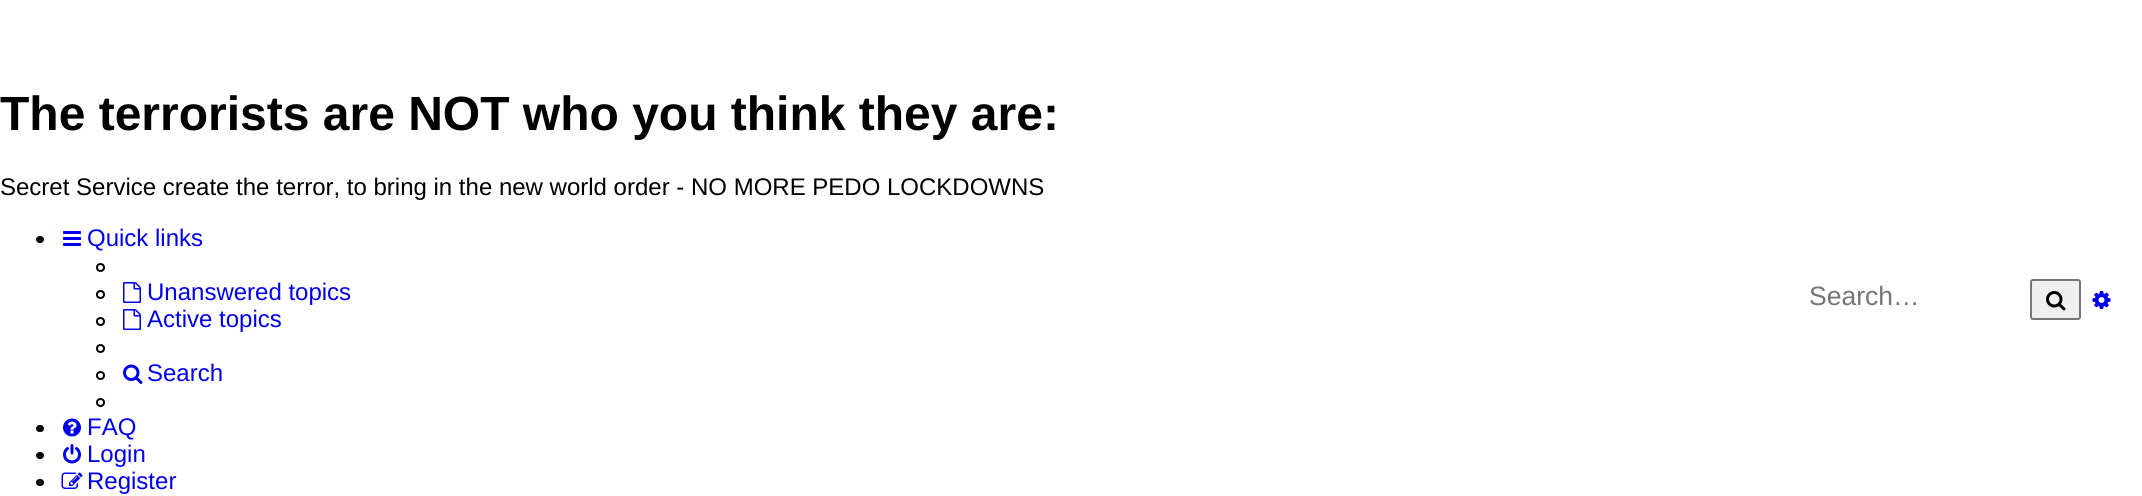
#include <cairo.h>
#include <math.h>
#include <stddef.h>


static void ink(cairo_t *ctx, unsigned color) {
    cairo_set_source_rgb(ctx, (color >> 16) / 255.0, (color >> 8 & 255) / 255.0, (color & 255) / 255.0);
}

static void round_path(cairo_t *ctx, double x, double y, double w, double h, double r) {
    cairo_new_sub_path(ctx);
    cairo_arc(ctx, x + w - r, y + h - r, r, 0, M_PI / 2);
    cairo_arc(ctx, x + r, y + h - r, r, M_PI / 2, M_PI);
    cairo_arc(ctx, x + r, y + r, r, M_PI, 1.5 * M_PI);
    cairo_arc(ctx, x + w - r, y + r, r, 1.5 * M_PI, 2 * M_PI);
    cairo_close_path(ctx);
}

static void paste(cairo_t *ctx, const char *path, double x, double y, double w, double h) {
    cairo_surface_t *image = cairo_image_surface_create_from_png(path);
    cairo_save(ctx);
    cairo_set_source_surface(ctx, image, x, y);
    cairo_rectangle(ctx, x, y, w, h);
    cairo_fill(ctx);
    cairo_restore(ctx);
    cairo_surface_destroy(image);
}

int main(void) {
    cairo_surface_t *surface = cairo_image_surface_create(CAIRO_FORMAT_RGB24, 2142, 496);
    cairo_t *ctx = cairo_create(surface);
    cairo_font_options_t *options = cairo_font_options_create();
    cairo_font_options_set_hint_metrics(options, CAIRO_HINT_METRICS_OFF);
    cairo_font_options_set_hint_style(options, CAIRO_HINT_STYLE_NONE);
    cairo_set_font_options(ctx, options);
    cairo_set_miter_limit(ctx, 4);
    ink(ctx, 0xFFFFFF);
    cairo_paint(ctx);
    cairo_select_font_face(ctx, "Liberation Sans", CAIRO_FONT_SLANT_NORMAL, CAIRO_FONT_WEIGHT_BOLD);
    cairo_set_font_size(ctx, 48);
    ink(ctx, 0x000000);
    cairo_move_to(ctx, 0, 130);
    cairo_show_text(ctx, "The terrorists are NOT who you think they are:");
    cairo_select_font_face(ctx, "Liberation Sans", CAIRO_FONT_SLANT_NORMAL, CAIRO_FONT_WEIGHT_NORMAL);
    cairo_set_font_size(ctx, 24);
    cairo_move_to(ctx, 0, 195);
    cairo_show_text(ctx, "Secret Service create the terror, to bring in the new world order - NO MORE PEDO LOCKDOWNS");
    cairo_set_font_size(ctx, 26.5);
    ink(ctx, 0x757575);
    cairo_move_to(ctx, 1809, 305);
    cairo_show_text(ctx, "Search…");
    ink(ctx, 0xEFEFEF);
    round_path(ctx, 2031, 280, 49, 39, 2);
    cairo_fill_preserve(ctx);
    ink(ctx, 0x767676);
    cairo_stroke(ctx);
    paste(ctx, "media/1.png", 2046, 291, 20, 20);
    paste(ctx, "media/2.png", 2092, 291, 19, 18);
    ink(ctx, 0x000000);
    round_path(ctx, 36, 236, 8, 7, 3.5);
    cairo_fill(ctx);
    paste(ctx, "media/3.png", 63, 231, 18, 15);
    cairo_set_font_size(ctx, 24);
    ink(ctx, 0x0000EE);
    cairo_move_to(ctx, 87, 246);
    cairo_show_text(ctx, "Quick links");
    cairo_new_path(ctx);
    cairo_arc(ctx, 100.5, 267.5, 3.5, 0, 2 * M_PI);
    ink(ctx, 0x000000);
    cairo_stroke(ctx);
    cairo_arc(ctx, 100.5, 294.5, 3.5, 0, 2 * M_PI);
    cairo_stroke(ctx);
    paste(ctx, "media/4.png", 123, 282, 18, 21);
    ink(ctx, 0x0000EE);
    cairo_move_to(ctx, 147, 300);
    cairo_show_text(ctx, "Unanswered topics");
    cairo_new_path(ctx);
    cairo_arc(ctx, 100.5, 321.5, 3.5, 0, 2 * M_PI);
    ink(ctx, 0x000000);
    cairo_stroke(ctx);
    paste(ctx, "media/4.png", 123, 309, 18, 21);
    ink(ctx, 0x0000EE);
    cairo_move_to(ctx, 147, 327);
    cairo_show_text(ctx, "Active topics");
    cairo_new_path(ctx);
    cairo_arc(ctx, 100.5, 348.5, 3.5, 0, 2 * M_PI);
    ink(ctx, 0x000000);
    cairo_stroke(ctx);
    cairo_arc(ctx, 100.5, 375.5, 3.5, 0, 2 * M_PI);
    cairo_stroke(ctx);
    paste(ctx, "media/5.png", 123, 364, 20, 20);
    ink(ctx, 0x0000EE);
    cairo_move_to(ctx, 147, 381);
    cairo_show_text(ctx, "Search");
    cairo_new_path(ctx);
    cairo_arc(ctx, 100.5, 402.5, 3.5, 0, 2 * M_PI);
    ink(ctx, 0x000000);
    cairo_stroke(ctx);
    round_path(ctx, 36, 425, 8, 7, 3.5);
    cairo_fill(ctx);
    paste(ctx, "media/6.png", 63, 418, 18, 19);
    ink(ctx, 0x0000EE);
    cairo_move_to(ctx, 87, 435);
    cairo_show_text(ctx, "FAQ");
    ink(ctx, 0x000000);
    round_path(ctx, 36, 452, 8, 7, 3.5);
    cairo_fill(ctx);
    paste(ctx, "media/7.png", 63, 444, 18, 20);
    ink(ctx, 0x0000EE);
    cairo_move_to(ctx, 87, 462);
    cairo_show_text(ctx, "Login");
    ink(ctx, 0x000000);
    round_path(ctx, 36, 479, 8, 7, 3.5);
    cairo_fill(ctx);
    paste(ctx, "media/8.png", 61, 472, 22, 17);
    ink(ctx, 0x0000EE);
    cairo_move_to(ctx, 87, 489);
    cairo_show_text(ctx, "Register");
    cairo_surface_write_to_png(surface, "image.png");
    cairo_font_options_destroy(options);
    cairo_destroy(ctx);
    cairo_surface_destroy(surface);
    return 0;
}
